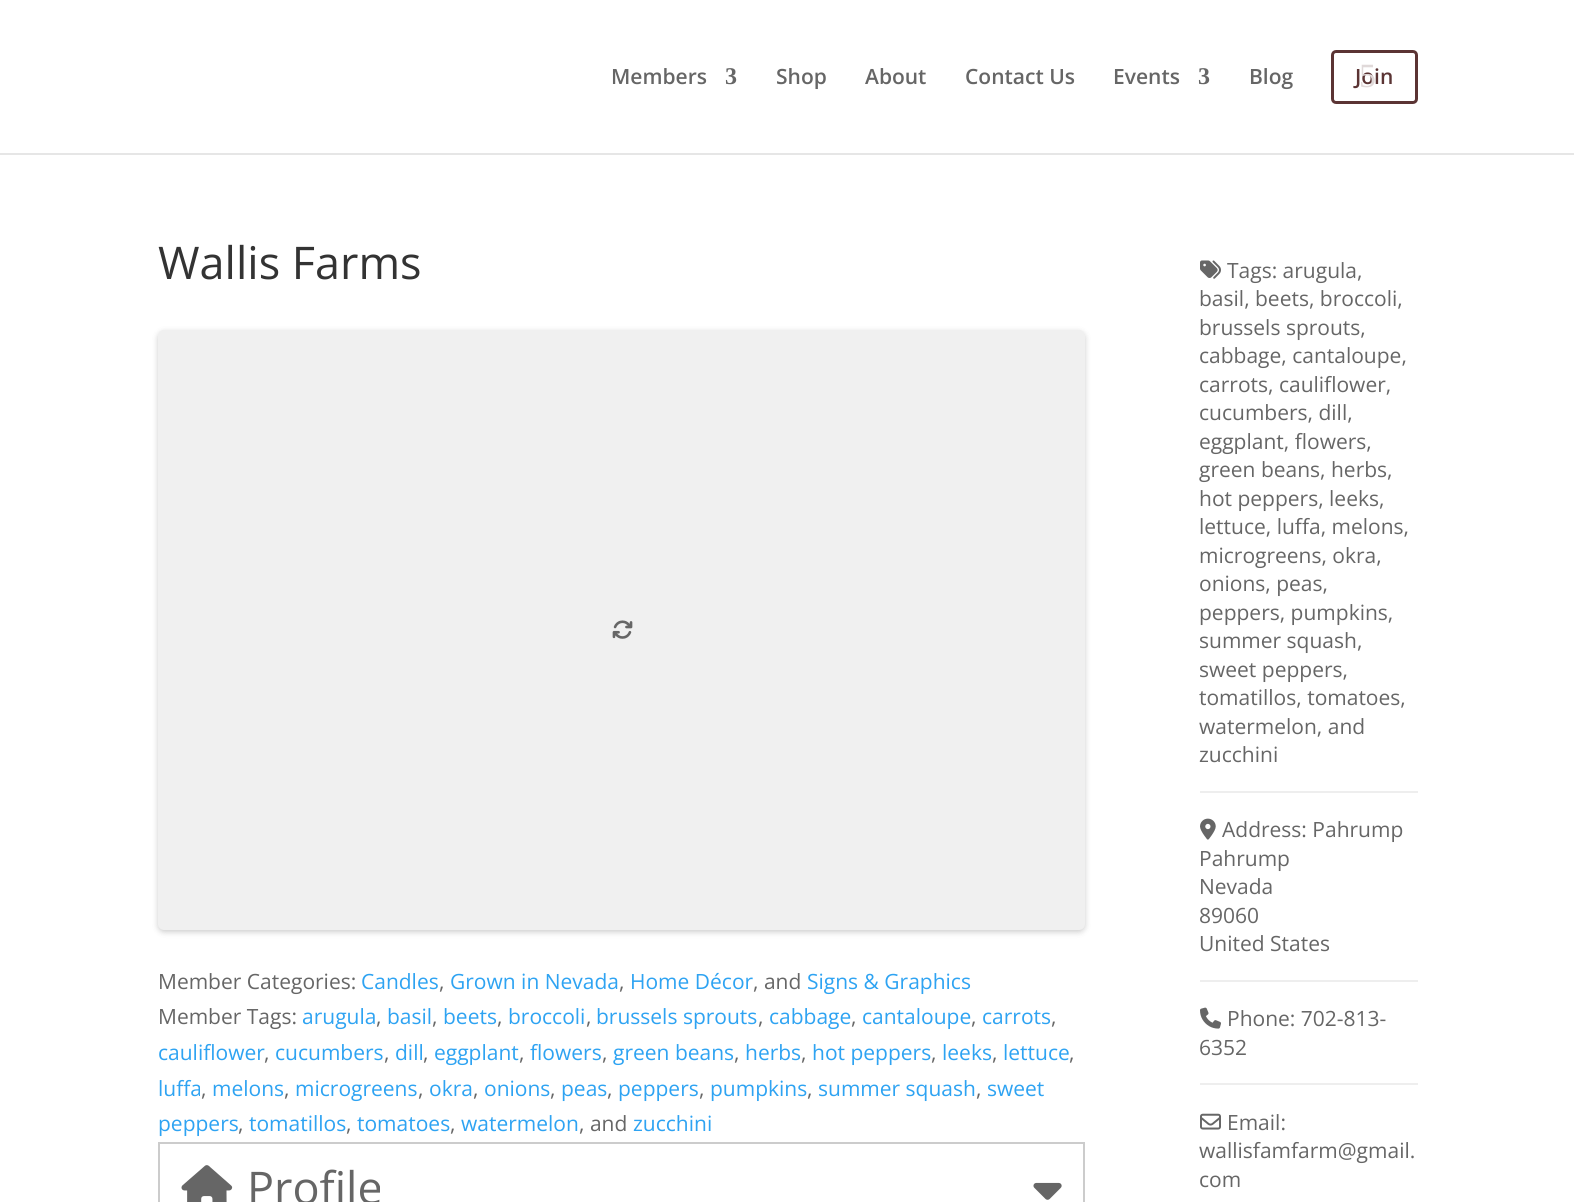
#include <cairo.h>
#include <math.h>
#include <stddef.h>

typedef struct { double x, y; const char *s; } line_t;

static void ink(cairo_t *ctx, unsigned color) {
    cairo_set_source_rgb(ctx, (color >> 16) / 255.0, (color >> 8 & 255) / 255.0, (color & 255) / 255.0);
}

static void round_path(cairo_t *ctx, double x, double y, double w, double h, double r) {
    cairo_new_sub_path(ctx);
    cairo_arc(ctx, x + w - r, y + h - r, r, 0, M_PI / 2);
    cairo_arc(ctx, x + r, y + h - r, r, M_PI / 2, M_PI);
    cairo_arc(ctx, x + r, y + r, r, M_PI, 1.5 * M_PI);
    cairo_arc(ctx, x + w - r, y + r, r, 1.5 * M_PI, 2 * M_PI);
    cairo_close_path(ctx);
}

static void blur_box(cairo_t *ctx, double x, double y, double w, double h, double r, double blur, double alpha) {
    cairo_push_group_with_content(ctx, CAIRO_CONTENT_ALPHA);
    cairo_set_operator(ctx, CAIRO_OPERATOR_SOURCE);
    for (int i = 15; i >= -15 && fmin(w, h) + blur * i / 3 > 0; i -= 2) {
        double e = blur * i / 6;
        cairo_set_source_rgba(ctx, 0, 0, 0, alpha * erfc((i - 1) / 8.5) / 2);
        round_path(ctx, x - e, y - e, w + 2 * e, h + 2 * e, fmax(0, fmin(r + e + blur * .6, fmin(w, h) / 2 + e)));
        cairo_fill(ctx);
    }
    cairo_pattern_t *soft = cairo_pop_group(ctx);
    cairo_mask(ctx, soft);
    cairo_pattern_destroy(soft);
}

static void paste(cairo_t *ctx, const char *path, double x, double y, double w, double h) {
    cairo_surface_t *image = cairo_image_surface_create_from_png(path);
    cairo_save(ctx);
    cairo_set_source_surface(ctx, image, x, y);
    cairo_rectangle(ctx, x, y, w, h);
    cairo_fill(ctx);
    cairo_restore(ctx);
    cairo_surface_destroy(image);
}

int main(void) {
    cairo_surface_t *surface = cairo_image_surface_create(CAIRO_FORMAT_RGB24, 1574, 1202);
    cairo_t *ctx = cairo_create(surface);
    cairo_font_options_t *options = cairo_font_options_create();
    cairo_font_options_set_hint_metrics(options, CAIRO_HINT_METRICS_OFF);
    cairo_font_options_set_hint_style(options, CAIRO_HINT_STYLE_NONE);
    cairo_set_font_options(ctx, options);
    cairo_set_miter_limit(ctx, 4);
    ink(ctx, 0xFFFFFF);
    cairo_paint(ctx);
    ink(ctx, 0xE6E6E6);
    cairo_rectangle(ctx, 0, 153, 1574, 2);
    cairo_fill(ctx);
    cairo_select_font_face(ctx, "Open Sans SemiBold", CAIRO_FONT_SLANT_NORMAL, CAIRO_FONT_WEIGHT_NORMAL);
    cairo_set_font_size(ctx, 21);
    ink(ctx, 0x666666);
    cairo_move_to(ctx, 611, 84);
    cairo_show_text(ctx, "Members");
    cairo_select_font_face(ctx, "Liberation Serif", CAIRO_FONT_SLANT_NORMAL, CAIRO_FONT_WEIGHT_BOLD);
    cairo_set_font_size(ctx, 24);
    cairo_move_to(ctx, 725, 84);
    cairo_show_text(ctx, "3");
    cairo_select_font_face(ctx, "Open Sans SemiBold", CAIRO_FONT_SLANT_NORMAL, CAIRO_FONT_WEIGHT_NORMAL);
    cairo_set_font_size(ctx, 21);
    {
        static const line_t items[] = {
            {776, 84, "Shop"},
            {865, 84, "About"},
            {965, 84, "Contact Us"},
            {1113, 84, "Events"},
        };
        for (size_t i = 0; i < sizeof items / sizeof *items; i++) {
            cairo_move_to(ctx, items[i].x, items[i].y);
            cairo_show_text(ctx, items[i].s);
        }
    }
    cairo_select_font_face(ctx, "Liberation Serif", CAIRO_FONT_SLANT_NORMAL, CAIRO_FONT_WEIGHT_BOLD);
    cairo_set_font_size(ctx, 24);
    cairo_move_to(ctx, 1198, 84);
    cairo_show_text(ctx, "3");
    cairo_select_font_face(ctx, "Open Sans SemiBold", CAIRO_FONT_SLANT_NORMAL, CAIRO_FONT_WEIGHT_NORMAL);
    cairo_set_font_size(ctx, 21);
    cairo_move_to(ctx, 1249, 84);
    cairo_show_text(ctx, "Blog");
    round_path(ctx, 1332.5, 51.5, 84, 51, 3.5);
    ink(ctx, 0x5B3434);
    cairo_set_line_width(ctx, 3);
    cairo_stroke(ctx);
    cairo_move_to(ctx, 1355, 84);
    cairo_show_text(ctx, "Join");
    cairo_select_font_face(ctx, "Liberation Serif", CAIRO_FONT_SLANT_NORMAL, CAIRO_FONT_WEIGHT_NORMAL);
    cairo_set_font_size(ctx, 34);
    ink(ctx, 0xE0D9D9);
    cairo_move_to(ctx, 1359, 87);
    cairo_show_text(ctx, "5");
    cairo_select_font_face(ctx, "Open Sans", CAIRO_FONT_SLANT_NORMAL, CAIRO_FONT_WEIGHT_NORMAL);
    cairo_set_font_size(ctx, 45);
    ink(ctx, 0x333333);
    cairo_move_to(ctx, 158, 279);
    cairo_show_text(ctx, "Wallis Farms");
    ink(ctx, 0x000000);
    blur_box(ctx, 158, 332, 927, 600, 6, 3, 0.2);
    ink(ctx, 0xF0F0F0);
    round_path(ctx, 158, 330, 927, 600, 6);
    cairo_fill(ctx);
    paste(ctx, "media/1.png", 612, 620, 21, 19);
    cairo_set_font_size(ctx, 21);
    ink(ctx, 0x666666);
    cairo_move_to(ctx, 158, 989);
    cairo_show_text(ctx, "Member Categories:");
    ink(ctx, 0x2EA3F2);
    cairo_move_to(ctx, 361, 989);
    cairo_show_text(ctx, "Candles");
    ink(ctx, 0x666666);
    cairo_move_to(ctx, 439, 989);
    cairo_show_text(ctx, ",");
    ink(ctx, 0x2EA3F2);
    cairo_move_to(ctx, 450, 989);
    cairo_show_text(ctx, "Grown in Nevada");
    ink(ctx, 0x666666);
    cairo_move_to(ctx, 619, 989);
    cairo_show_text(ctx, ",");
    ink(ctx, 0x2EA3F2);
    cairo_move_to(ctx, 630, 989);
    cairo_show_text(ctx, "Home Décor");
    ink(ctx, 0x666666);
    cairo_move_to(ctx, 753, 989);
    cairo_show_text(ctx, ", and");
    ink(ctx, 0x2EA3F2);
    cairo_move_to(ctx, 807, 989);
    cairo_show_text(ctx, "Signs & Graphics");
    ink(ctx, 0x666666);
    cairo_move_to(ctx, 158, 1024);
    cairo_show_text(ctx, "Member Tags:");
    ink(ctx, 0x2EA3F2);
    cairo_move_to(ctx, 302, 1024);
    cairo_show_text(ctx, "arugula");
    ink(ctx, 0x666666);
    cairo_move_to(ctx, 376, 1024);
    cairo_show_text(ctx, ",");
    ink(ctx, 0x2EA3F2);
    cairo_move_to(ctx, 387, 1024);
    cairo_show_text(ctx, "basil");
    ink(ctx, 0x666666);
    cairo_move_to(ctx, 432, 1024);
    cairo_show_text(ctx, ",");
    ink(ctx, 0x2EA3F2);
    cairo_move_to(ctx, 443, 1024);
    cairo_show_text(ctx, "beets");
    ink(ctx, 0x666666);
    cairo_move_to(ctx, 497, 1024);
    cairo_show_text(ctx, ",");
    ink(ctx, 0x2EA3F2);
    cairo_move_to(ctx, 508, 1024);
    cairo_show_text(ctx, "broccoli");
    ink(ctx, 0x666666);
    cairo_move_to(ctx, 586, 1024);
    cairo_show_text(ctx, ",");
    ink(ctx, 0x2EA3F2);
    cairo_move_to(ctx, 596, 1024);
    cairo_show_text(ctx, "brussels sprouts");
    ink(ctx, 0x666666);
    cairo_move_to(ctx, 758, 1024);
    cairo_show_text(ctx, ",");
    ink(ctx, 0x2EA3F2);
    cairo_move_to(ctx, 769, 1024);
    cairo_show_text(ctx, "cabbage");
    ink(ctx, 0x666666);
    cairo_move_to(ctx, 851, 1024);
    cairo_show_text(ctx, ",");
    ink(ctx, 0x2EA3F2);
    cairo_move_to(ctx, 862, 1024);
    cairo_show_text(ctx, "cantaloupe");
    ink(ctx, 0x666666);
    cairo_move_to(ctx, 971, 1024);
    cairo_show_text(ctx, ",");
    ink(ctx, 0x2EA3F2);
    cairo_move_to(ctx, 982, 1024);
    cairo_show_text(ctx, "carrots");
    ink(ctx, 0x666666);
    cairo_move_to(ctx, 1051, 1024);
    cairo_show_text(ctx, ",");
    ink(ctx, 0x2EA3F2);
    cairo_move_to(ctx, 158, 1060);
    cairo_show_text(ctx, "cauliflower");
    ink(ctx, 0x666666);
    cairo_move_to(ctx, 264, 1060);
    cairo_show_text(ctx, ",");
    ink(ctx, 0x2EA3F2);
    cairo_move_to(ctx, 275, 1060);
    cairo_show_text(ctx, "cucumbers");
    ink(ctx, 0x666666);
    cairo_move_to(ctx, 384, 1060);
    cairo_show_text(ctx, ",");
    ink(ctx, 0x2EA3F2);
    cairo_move_to(ctx, 395, 1060);
    cairo_show_text(ctx, "dill");
    ink(ctx, 0x666666);
    cairo_move_to(ctx, 423, 1060);
    cairo_show_text(ctx, ",");
    ink(ctx, 0x2EA3F2);
    cairo_move_to(ctx, 434, 1060);
    cairo_show_text(ctx, "eggplant");
    ink(ctx, 0x666666);
    cairo_move_to(ctx, 519, 1060);
    cairo_show_text(ctx, ",");
    ink(ctx, 0x2EA3F2);
    cairo_move_to(ctx, 530, 1060);
    cairo_show_text(ctx, "flowers");
    ink(ctx, 0x666666);
    cairo_move_to(ctx, 602, 1060);
    cairo_show_text(ctx, ",");
    ink(ctx, 0x2EA3F2);
    cairo_move_to(ctx, 613, 1060);
    cairo_show_text(ctx, "green beans");
    ink(ctx, 0x666666);
    cairo_move_to(ctx, 734, 1060);
    cairo_show_text(ctx, ",");
    ink(ctx, 0x2EA3F2);
    cairo_move_to(ctx, 745, 1060);
    cairo_show_text(ctx, "herbs");
    ink(ctx, 0x666666);
    cairo_move_to(ctx, 801, 1060);
    cairo_show_text(ctx, ",");
    ink(ctx, 0x2EA3F2);
    cairo_move_to(ctx, 812, 1060);
    cairo_show_text(ctx, "hot peppers");
    ink(ctx, 0x666666);
    cairo_move_to(ctx, 931, 1060);
    cairo_show_text(ctx, ",");
    ink(ctx, 0x2EA3F2);
    cairo_move_to(ctx, 942, 1060);
    cairo_show_text(ctx, "leeks");
    ink(ctx, 0x666666);
    cairo_move_to(ctx, 992, 1060);
    cairo_show_text(ctx, ",");
    ink(ctx, 0x2EA3F2);
    cairo_move_to(ctx, 1003, 1060);
    cairo_show_text(ctx, "lettuce");
    ink(ctx, 0x666666);
    cairo_move_to(ctx, 1069, 1060);
    cairo_show_text(ctx, ",");
    ink(ctx, 0x2EA3F2);
    cairo_move_to(ctx, 158, 1096);
    cairo_show_text(ctx, "luffa");
    ink(ctx, 0x666666);
    cairo_move_to(ctx, 201, 1096);
    cairo_show_text(ctx, ",");
    ink(ctx, 0x2EA3F2);
    cairo_move_to(ctx, 212, 1096);
    cairo_show_text(ctx, "melons");
    ink(ctx, 0x666666);
    cairo_move_to(ctx, 284, 1096);
    cairo_show_text(ctx, ",");
    ink(ctx, 0x2EA3F2);
    cairo_move_to(ctx, 295, 1096);
    cairo_show_text(ctx, "microgreens");
    ink(ctx, 0x666666);
    cairo_move_to(ctx, 418, 1096);
    cairo_show_text(ctx, ",");
    ink(ctx, 0x2EA3F2);
    cairo_move_to(ctx, 429, 1096);
    cairo_show_text(ctx, "okra");
    ink(ctx, 0x666666);
    cairo_move_to(ctx, 473, 1096);
    cairo_show_text(ctx, ",");
    ink(ctx, 0x2EA3F2);
    cairo_move_to(ctx, 484, 1096);
    cairo_show_text(ctx, "onions");
    ink(ctx, 0x666666);
    cairo_move_to(ctx, 550, 1096);
    cairo_show_text(ctx, ",");
    ink(ctx, 0x2EA3F2);
    cairo_move_to(ctx, 561, 1096);
    cairo_show_text(ctx, "peas");
    ink(ctx, 0x666666);
    cairo_move_to(ctx, 607, 1096);
    cairo_show_text(ctx, ",");
    ink(ctx, 0x2EA3F2);
    cairo_move_to(ctx, 618, 1096);
    cairo_show_text(ctx, "peppers");
    ink(ctx, 0x666666);
    cairo_move_to(ctx, 699, 1096);
    cairo_show_text(ctx, ",");
    ink(ctx, 0x2EA3F2);
    cairo_move_to(ctx, 710, 1096);
    cairo_show_text(ctx, "pumpkins");
    ink(ctx, 0x666666);
    cairo_move_to(ctx, 807, 1096);
    cairo_show_text(ctx, ",");
    ink(ctx, 0x2EA3F2);
    cairo_move_to(ctx, 818, 1096);
    cairo_show_text(ctx, "summer squash");
    ink(ctx, 0x666666);
    cairo_move_to(ctx, 976, 1096);
    cairo_show_text(ctx, ",");
    ink(ctx, 0x2EA3F2);
    cairo_move_to(ctx, 987, 1096);
    cairo_show_text(ctx, "sweet");
    cairo_move_to(ctx, 158, 1131);
    cairo_show_text(ctx, "peppers");
    ink(ctx, 0x666666);
    cairo_move_to(ctx, 238, 1131);
    cairo_show_text(ctx, ",");
    ink(ctx, 0x2EA3F2);
    cairo_move_to(ctx, 249, 1131);
    cairo_show_text(ctx, "tomatillos");
    ink(ctx, 0x666666);
    cairo_move_to(ctx, 346, 1131);
    cairo_show_text(ctx, ",");
    ink(ctx, 0x2EA3F2);
    cairo_move_to(ctx, 357, 1131);
    cairo_show_text(ctx, "tomatoes");
    ink(ctx, 0x666666);
    cairo_move_to(ctx, 450, 1131);
    cairo_show_text(ctx, ",");
    ink(ctx, 0x2EA3F2);
    cairo_move_to(ctx, 461, 1131);
    cairo_show_text(ctx, "watermelon");
    ink(ctx, 0x666666);
    cairo_move_to(ctx, 579, 1131);
    cairo_show_text(ctx, ", and");
    ink(ctx, 0x2EA3F2);
    cairo_move_to(ctx, 633, 1131);
    cairo_show_text(ctx, "zucchini");
    cairo_rectangle(ctx, 159, 1143, 925, 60);
    ink(ctx, 0xCCCCCC);
    cairo_set_line_width(ctx, 2);
    cairo_stroke(ctx);
    paste(ctx, "media/2.png", 181, 1165, 52, 37);
    cairo_set_font_size(ctx, 45);
    ink(ctx, 0x666666);
    cairo_move_to(ctx, 247, 1204);
    cairo_show_text(ctx, "Profile");
    paste(ctx, "media/3.png", 1033, 1182, 29, 18);
    ink(ctx, 0xEEEEEE);
    cairo_rectangle(ctx, 1200, 791, 218, 2);
    cairo_fill(ctx);
    paste(ctx, "media/4.png", 1200, 260, 21, 19);
    cairo_set_font_size(ctx, 21);
    ink(ctx, 0x666666);
    {
        static const line_t items[] = {
            {1227, 278, "Tags: arugula,"},
            {1199, 306, "basil, beets, broccoli,"},
            {1199, 335, "brussels sprouts,"},
            {1199, 363, "cabbage, cantaloupe,"},
            {1199, 392, "carrots, cauliflower,"},
            {1199, 420, "cucumbers, dill,"},
            {1199, 449, "eggplant, flowers,"},
            {1199, 477, "green beans, herbs,"},
            {1199, 506, "hot peppers, leeks,"},
            {1199, 534, "lettuce, luffa, melons,"},
            {1199, 563, "microgreens, okra,"},
            {1199, 591, "onions, peas,"},
            {1199, 620, "peppers, pumpkins,"},
            {1199, 648, "summer squash,"},
            {1199, 677, "sweet peppers,"},
            {1199, 705, "tomatillos, tomatoes,"},
            {1199, 734, "watermelon, and"},
            {1199, 762, "zucchini"},
        };
        for (size_t i = 0; i < sizeof items / sizeof *items; i++) {
            cairo_move_to(ctx, items[i].x, items[i].y);
            cairo_show_text(ctx, items[i].s);
        }
    }
    ink(ctx, 0xEEEEEE);
    cairo_rectangle(ctx, 1200, 980, 218, 2);
    cairo_fill(ctx);
    paste(ctx, "media/5.png", 1200, 818, 16, 22);
    ink(ctx, 0x666666);
    {
        static const line_t items[] = {
            {1222, 837, "Address: Pahrump"},
            {1199, 866, "Pahrump"},
            {1199, 894, "Nevada"},
            {1199, 923, "89060"},
            {1199, 951, "United States"},
        };
        for (size_t i = 0; i < sizeof items / sizeof *items; i++) {
            cairo_move_to(ctx, items[i].x, items[i].y);
            cairo_show_text(ctx, items[i].s);
        }
    }
    ink(ctx, 0xEEEEEE);
    cairo_rectangle(ctx, 1200, 1083, 218, 2);
    cairo_fill(ctx);
    paste(ctx, "media/6.png", 1200, 1007, 21, 22);
    ink(ctx, 0x666666);
    cairo_move_to(ctx, 1227, 1026);
    cairo_show_text(ctx, "Phone: 702-813-");
    cairo_move_to(ctx, 1199, 1055);
    cairo_show_text(ctx, "6352");
    paste(ctx, "media/7.png", 1200, 1113, 21, 17);
    {
        static const line_t items[] = {
            {1227, 1130, "Email:"},
            {1199, 1158, "wallisfamfarm@gmail."},
            {1199, 1187, "com"},
        };
        for (size_t i = 0; i < sizeof items / sizeof *items; i++) {
            cairo_move_to(ctx, items[i].x, items[i].y);
            cairo_show_text(ctx, items[i].s);
        }
    }
    cairo_surface_write_to_png(surface, "image.png");
    cairo_font_options_destroy(options);
    cairo_destroy(ctx);
    cairo_surface_destroy(surface);
    return 0;
}
